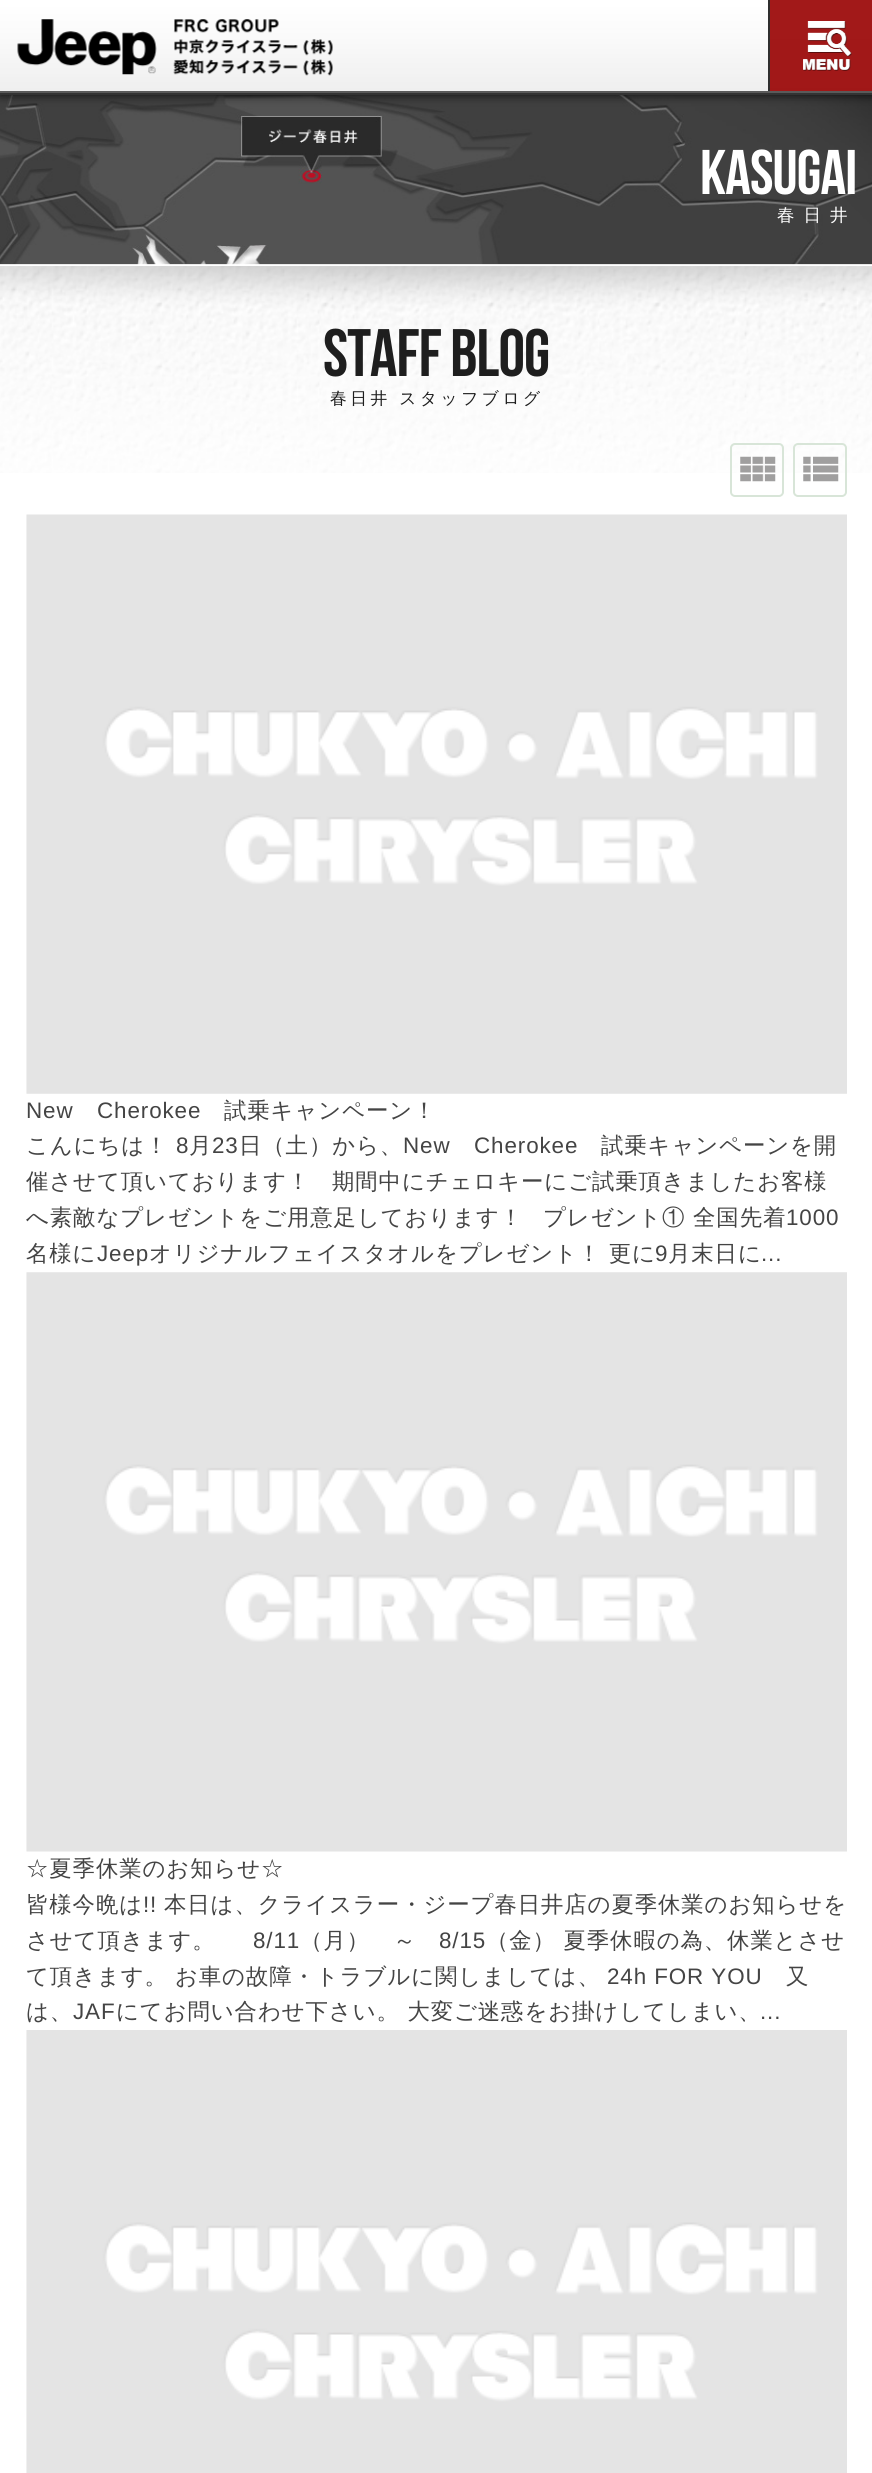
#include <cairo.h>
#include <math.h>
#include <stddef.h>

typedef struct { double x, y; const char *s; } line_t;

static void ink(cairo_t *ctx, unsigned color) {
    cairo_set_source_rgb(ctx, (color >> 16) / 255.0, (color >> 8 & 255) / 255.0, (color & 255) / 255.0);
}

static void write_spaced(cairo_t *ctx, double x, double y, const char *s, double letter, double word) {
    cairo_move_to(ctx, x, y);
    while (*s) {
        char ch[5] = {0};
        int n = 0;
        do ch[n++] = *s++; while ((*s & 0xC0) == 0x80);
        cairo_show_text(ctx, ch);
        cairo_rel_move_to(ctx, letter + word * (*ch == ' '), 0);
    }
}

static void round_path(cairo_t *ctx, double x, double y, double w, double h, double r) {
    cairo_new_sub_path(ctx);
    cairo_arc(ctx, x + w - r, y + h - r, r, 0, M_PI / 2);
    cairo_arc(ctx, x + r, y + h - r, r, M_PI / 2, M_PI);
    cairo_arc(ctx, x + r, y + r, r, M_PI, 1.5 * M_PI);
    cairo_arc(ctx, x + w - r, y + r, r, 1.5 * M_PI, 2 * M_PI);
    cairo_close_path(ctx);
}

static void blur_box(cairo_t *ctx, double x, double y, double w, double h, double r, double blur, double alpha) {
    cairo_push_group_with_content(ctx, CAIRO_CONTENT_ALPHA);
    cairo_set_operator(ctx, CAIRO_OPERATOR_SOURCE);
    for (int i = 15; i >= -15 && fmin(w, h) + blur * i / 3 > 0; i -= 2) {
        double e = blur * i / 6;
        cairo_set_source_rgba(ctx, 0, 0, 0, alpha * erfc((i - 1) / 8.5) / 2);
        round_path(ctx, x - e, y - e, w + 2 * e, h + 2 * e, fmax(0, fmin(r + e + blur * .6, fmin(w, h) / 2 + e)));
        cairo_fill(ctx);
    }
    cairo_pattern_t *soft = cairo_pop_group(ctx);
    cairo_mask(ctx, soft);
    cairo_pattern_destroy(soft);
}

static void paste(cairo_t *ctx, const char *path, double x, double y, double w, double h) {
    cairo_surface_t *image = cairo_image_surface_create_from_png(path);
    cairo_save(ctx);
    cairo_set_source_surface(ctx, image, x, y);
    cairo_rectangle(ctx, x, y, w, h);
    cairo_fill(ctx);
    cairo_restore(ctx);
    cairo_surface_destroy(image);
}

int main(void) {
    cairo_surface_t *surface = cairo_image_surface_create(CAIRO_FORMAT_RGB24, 872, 2473);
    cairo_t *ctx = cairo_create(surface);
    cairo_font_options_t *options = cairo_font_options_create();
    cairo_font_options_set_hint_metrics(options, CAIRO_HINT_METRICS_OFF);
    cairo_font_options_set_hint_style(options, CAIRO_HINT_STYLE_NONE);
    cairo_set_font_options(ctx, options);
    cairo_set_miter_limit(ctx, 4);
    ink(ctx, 0xFFFFFF);
    cairo_paint(ctx);
    paste(ctx, "media/5.png", 0, 95, 872, 170);
    ink(ctx, 0x000000);
    blur_box(ctx, 0, 0, 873, 95, 0, 5, 0.8);
    paste(ctx, "media/1.png", 0, 0, 872, 91);
    ink(ctx, 0x5A5A5A);
    cairo_rectangle(ctx, 0, 91, 872, 2);
    cairo_fill(ctx);
    ink(ctx, 0x333333);
    cairo_rectangle(ctx, 0, 93, 872, 2);
    cairo_fill(ctx);
    cairo_set_source_rgba(ctx, 0.596, 0, 0, 0.9);
    cairo_rectangle(ctx, 770, 0, 102, 91);
    cairo_fill(ctx);
    ink(ctx, 0x2F2F2F);
    cairo_rectangle(ctx, 768, 0, 2, 91);
    cairo_fill(ctx);
    paste(ctx, "media/2.png", 803, 21, 49, 50);
    paste(ctx, "media/3.png", 803, 21, 49, 50);
    paste(ctx, "media/4.png", 17, 19, 316, 57);
    paste(ctx, "media/6.png", 0, 264, 872, 1);
    cairo_select_font_face(ctx, "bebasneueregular", CAIRO_FONT_SLANT_NORMAL, CAIRO_FONT_WEIGHT_NORMAL);
    cairo_set_font_size(ctx, 63);
    ink(ctx, 0xFFFFFF);
    write_spaced(ctx, 700, 194, "KASUGAI", -0.9, 0);
    cairo_select_font_face(ctx, "WenQuanYi Zen Hei Medium", CAIRO_FONT_SLANT_NORMAL, CAIRO_FONT_WEIGHT_NORMAL);
    cairo_set_font_size(ctx, 17.5);
    write_spaced(ctx, 777, 221, "春日井", 9, 0);
    paste(ctx, "media/7.png", 0, 266, 872, 207);
    cairo_select_font_face(ctx, "bebasneueregular", CAIRO_FONT_SLANT_NORMAL, CAIRO_FONT_WEIGHT_NORMAL);
    cairo_set_font_size(ctx, 67);
    ink(ctx, 0x1E1E1E);
    write_spaced(ctx, 323, 376, "Staff Blog", -0.9, 0);
    cairo_select_font_face(ctx, "WenQuanYi Zen Hei Medium", CAIRO_FONT_SLANT_NORMAL, CAIRO_FONT_WEIGHT_NORMAL);
    cairo_set_font_size(ctx, 16.75);
    write_spaced(ctx, 330, 404, "春日井 スタッフブログ", 3.5, 0);
    paste(ctx, "media/8.png", 740, 456, 36, 26);
    round_path(ctx, 731, 444, 52, 52, 4);
    ink(ctx, 0xD8E5D8);
    cairo_stroke(ctx);
    paste(ctx, "media/9.png", 803, 456, 36, 26);
    round_path(ctx, 794, 444, 52, 52, 4);
    cairo_stroke(ctx);
    paste(ctx, "media/10.png", 26, 514, 821, 580);
    cairo_select_font_face(ctx, "Liberation Sans", CAIRO_FONT_SLANT_NORMAL, CAIRO_FONT_WEIGHT_NORMAL);
    cairo_set_font_size(ctx, 22.4);
    ink(ctx, 0x444444);
    write_spaced(ctx, 26, 1118, "New", 0.9, 0);
    write_spaced(ctx, 97, 1118, "Cherokee", 0.9, 0);
    cairo_select_font_face(ctx, "WenQuanYi Zen Hei Medium", CAIRO_FONT_SLANT_NORMAL, CAIRO_FONT_WEIGHT_NORMAL);
    write_spaced(ctx, 224, 1118, "試乗キャンペーン！", 0.9, 0);
    write_spaced(ctx, 26, 1153, "こんにちは！", 0.9, 0);
    cairo_select_font_face(ctx, "Liberation Sans", CAIRO_FONT_SLANT_NORMAL, CAIRO_FONT_WEIGHT_NORMAL);
    write_spaced(ctx, 176, 1153, "8", 0.9, 0);
    cairo_select_font_face(ctx, "WenQuanYi Zen Hei Medium", CAIRO_FONT_SLANT_NORMAL, CAIRO_FONT_WEIGHT_NORMAL);
    write_spaced(ctx, 189, 1153, "月", 0.9, 0);
    cairo_select_font_face(ctx, "Liberation Sans", CAIRO_FONT_SLANT_NORMAL, CAIRO_FONT_WEIGHT_NORMAL);
    write_spaced(ctx, 212, 1153, "23", 0.9, 0);
    cairo_select_font_face(ctx, "WenQuanYi Zen Hei Medium", CAIRO_FONT_SLANT_NORMAL, CAIRO_FONT_WEIGHT_NORMAL);
    write_spaced(ctx, 239, 1153, "日（土）から、", 0.9, 0);
    cairo_select_font_face(ctx, "Liberation Sans", CAIRO_FONT_SLANT_NORMAL, CAIRO_FONT_WEIGHT_NORMAL);
    write_spaced(ctx, 403, 1153, "New", 0.9, 0);
    write_spaced(ctx, 474, 1153, "Cherokee", 0.9, 0);
    cairo_select_font_face(ctx, "WenQuanYi Zen Hei Medium", CAIRO_FONT_SLANT_NORMAL, CAIRO_FONT_WEIGHT_NORMAL);
    {
        static const line_t items[] = {
            {601, 1153, "試乗キャンペーンを開"},
            {26, 1189, "催させて頂いております！"},
            {332, 1189, "期間中にチェロキーにご試乗頂きましたお客様"},
            {26, 1225, "へ素敵なプレゼントをご用意足しております！"},
            {543, 1225, "プレゼント① 全国先着"},
        };
        for (size_t i = 0; i < sizeof items / sizeof *items; i++) {
            write_spaced(ctx, items[i].x, items[i].y, items[i].s, 0.9, 0);
        }
    }
    cairo_select_font_face(ctx, "Liberation Sans", CAIRO_FONT_SLANT_NORMAL, CAIRO_FONT_WEIGHT_NORMAL);
    write_spaced(ctx, 786, 1225, "1000", 0.9, 0);
    cairo_select_font_face(ctx, "WenQuanYi Zen Hei Medium", CAIRO_FONT_SLANT_NORMAL, CAIRO_FONT_WEIGHT_NORMAL);
    write_spaced(ctx, 26, 1261, "名様に", 0.9, 0);
    cairo_select_font_face(ctx, "Liberation Sans", CAIRO_FONT_SLANT_NORMAL, CAIRO_FONT_WEIGHT_NORMAL);
    write_spaced(ctx, 97, 1261, "Jeep", 0.9, 0);
    cairo_select_font_face(ctx, "WenQuanYi Zen Hei Medium", CAIRO_FONT_SLANT_NORMAL, CAIRO_FONT_WEIGHT_NORMAL);
    write_spaced(ctx, 149, 1261, "オリジナルフェイスタオルをプレゼント！ 更に", 0.9, 0);
    cairo_select_font_face(ctx, "Liberation Sans", CAIRO_FONT_SLANT_NORMAL, CAIRO_FONT_WEIGHT_NORMAL);
    write_spaced(ctx, 655, 1261, "9", 0.9, 0);
    cairo_select_font_face(ctx, "WenQuanYi Zen Hei Medium", CAIRO_FONT_SLANT_NORMAL, CAIRO_FONT_WEIGHT_NORMAL);
    write_spaced(ctx, 668, 1261, "月末日に", 0.9, 0);
    cairo_select_font_face(ctx, "Liberation Sans", CAIRO_FONT_SLANT_NORMAL, CAIRO_FONT_WEIGHT_NORMAL);
    write_spaced(ctx, 761, 1261, "...", 0.9, 0);
    paste(ctx, "media/11.png", 26, 1272, 821, 580);
    cairo_select_font_face(ctx, "WenQuanYi Zen Hei Medium", CAIRO_FONT_SLANT_NORMAL, CAIRO_FONT_WEIGHT_NORMAL);
    write_spaced(ctx, 26, 1876, "☆夏季休業のお知らせ☆", 0.9, 0);
    write_spaced(ctx, 26, 1912, "皆様今晩は", 0.9, 0);
    cairo_select_font_face(ctx, "Liberation Sans", CAIRO_FONT_SLANT_NORMAL, CAIRO_FONT_WEIGHT_NORMAL);
    write_spaced(ctx, 143, 1912, "!!", 0.9, 0);
    cairo_select_font_face(ctx, "WenQuanYi Zen Hei Medium", CAIRO_FONT_SLANT_NORMAL, CAIRO_FONT_WEIGHT_NORMAL);
    write_spaced(ctx, 164, 1912, "本日は、クライスラー・ジープ春日井店の夏季休業のお知らせを", 0.9, 0);
    write_spaced(ctx, 26, 1948, "させて頂きます。", 0.9, 0);
    cairo_select_font_face(ctx, "Liberation Sans", CAIRO_FONT_SLANT_NORMAL, CAIRO_FONT_WEIGHT_NORMAL);
    write_spaced(ctx, 253, 1948, "8/11", 0.9, 0);
    cairo_select_font_face(ctx, "WenQuanYi Zen Hei Medium", CAIRO_FONT_SLANT_NORMAL, CAIRO_FONT_WEIGHT_NORMAL);
    write_spaced(ctx, 300, 1948, "（月）　～", 0.9, 0);
    cairo_select_font_face(ctx, "Liberation Sans", CAIRO_FONT_SLANT_NORMAL, CAIRO_FONT_WEIGHT_NORMAL);
    write_spaced(ctx, 439, 1948, "8/15", 0.9, 0);
    cairo_select_font_face(ctx, "WenQuanYi Zen Hei Medium", CAIRO_FONT_SLANT_NORMAL, CAIRO_FONT_WEIGHT_NORMAL);
    {
        static const line_t items[] = {
            {486, 1948, "（金） 夏季休暇の為、休業とさせ"},
            {26, 1984, "て頂きます。"},
            {175, 1984, "お車の故障・トラブルに関しましては、"},
        };
        for (size_t i = 0; i < sizeof items / sizeof *items; i++) {
            write_spaced(ctx, items[i].x, items[i].y, items[i].s, 0.9, 0);
        }
    }
    cairo_select_font_face(ctx, "Liberation Sans", CAIRO_FONT_SLANT_NORMAL, CAIRO_FONT_WEIGHT_NORMAL);
    write_spaced(ctx, 607, 1984, "24h FOR YOU", 0.9, 0);
    cairo_select_font_face(ctx, "WenQuanYi Zen Hei Medium", CAIRO_FONT_SLANT_NORMAL, CAIRO_FONT_WEIGHT_NORMAL);
    write_spaced(ctx, 786, 1984, "又", 0.9, 0);
    write_spaced(ctx, 26, 2019, "は、", 0.9, 0);
    cairo_select_font_face(ctx, "Liberation Sans", CAIRO_FONT_SLANT_NORMAL, CAIRO_FONT_WEIGHT_NORMAL);
    write_spaced(ctx, 73, 2019, "JAF", 0.9, 0);
    cairo_select_font_face(ctx, "WenQuanYi Zen Hei Medium", CAIRO_FONT_SLANT_NORMAL, CAIRO_FONT_WEIGHT_NORMAL);
    write_spaced(ctx, 116, 2019, "にてお問い合わせ下さい。 大変ご迷惑をお掛けしてしまい、", 0.9, 0);
    cairo_select_font_face(ctx, "Liberation Sans", CAIRO_FONT_SLANT_NORMAL, CAIRO_FONT_WEIGHT_NORMAL);
    write_spaced(ctx, 760, 2019, "...", 0.9, 0);
    paste(ctx, "media/12.png", 26, 2030, 821, 443);
    cairo_surface_write_to_png(surface, "image.png");
    cairo_font_options_destroy(options);
    cairo_destroy(ctx);
    cairo_surface_destroy(surface);
    return 0;
}
